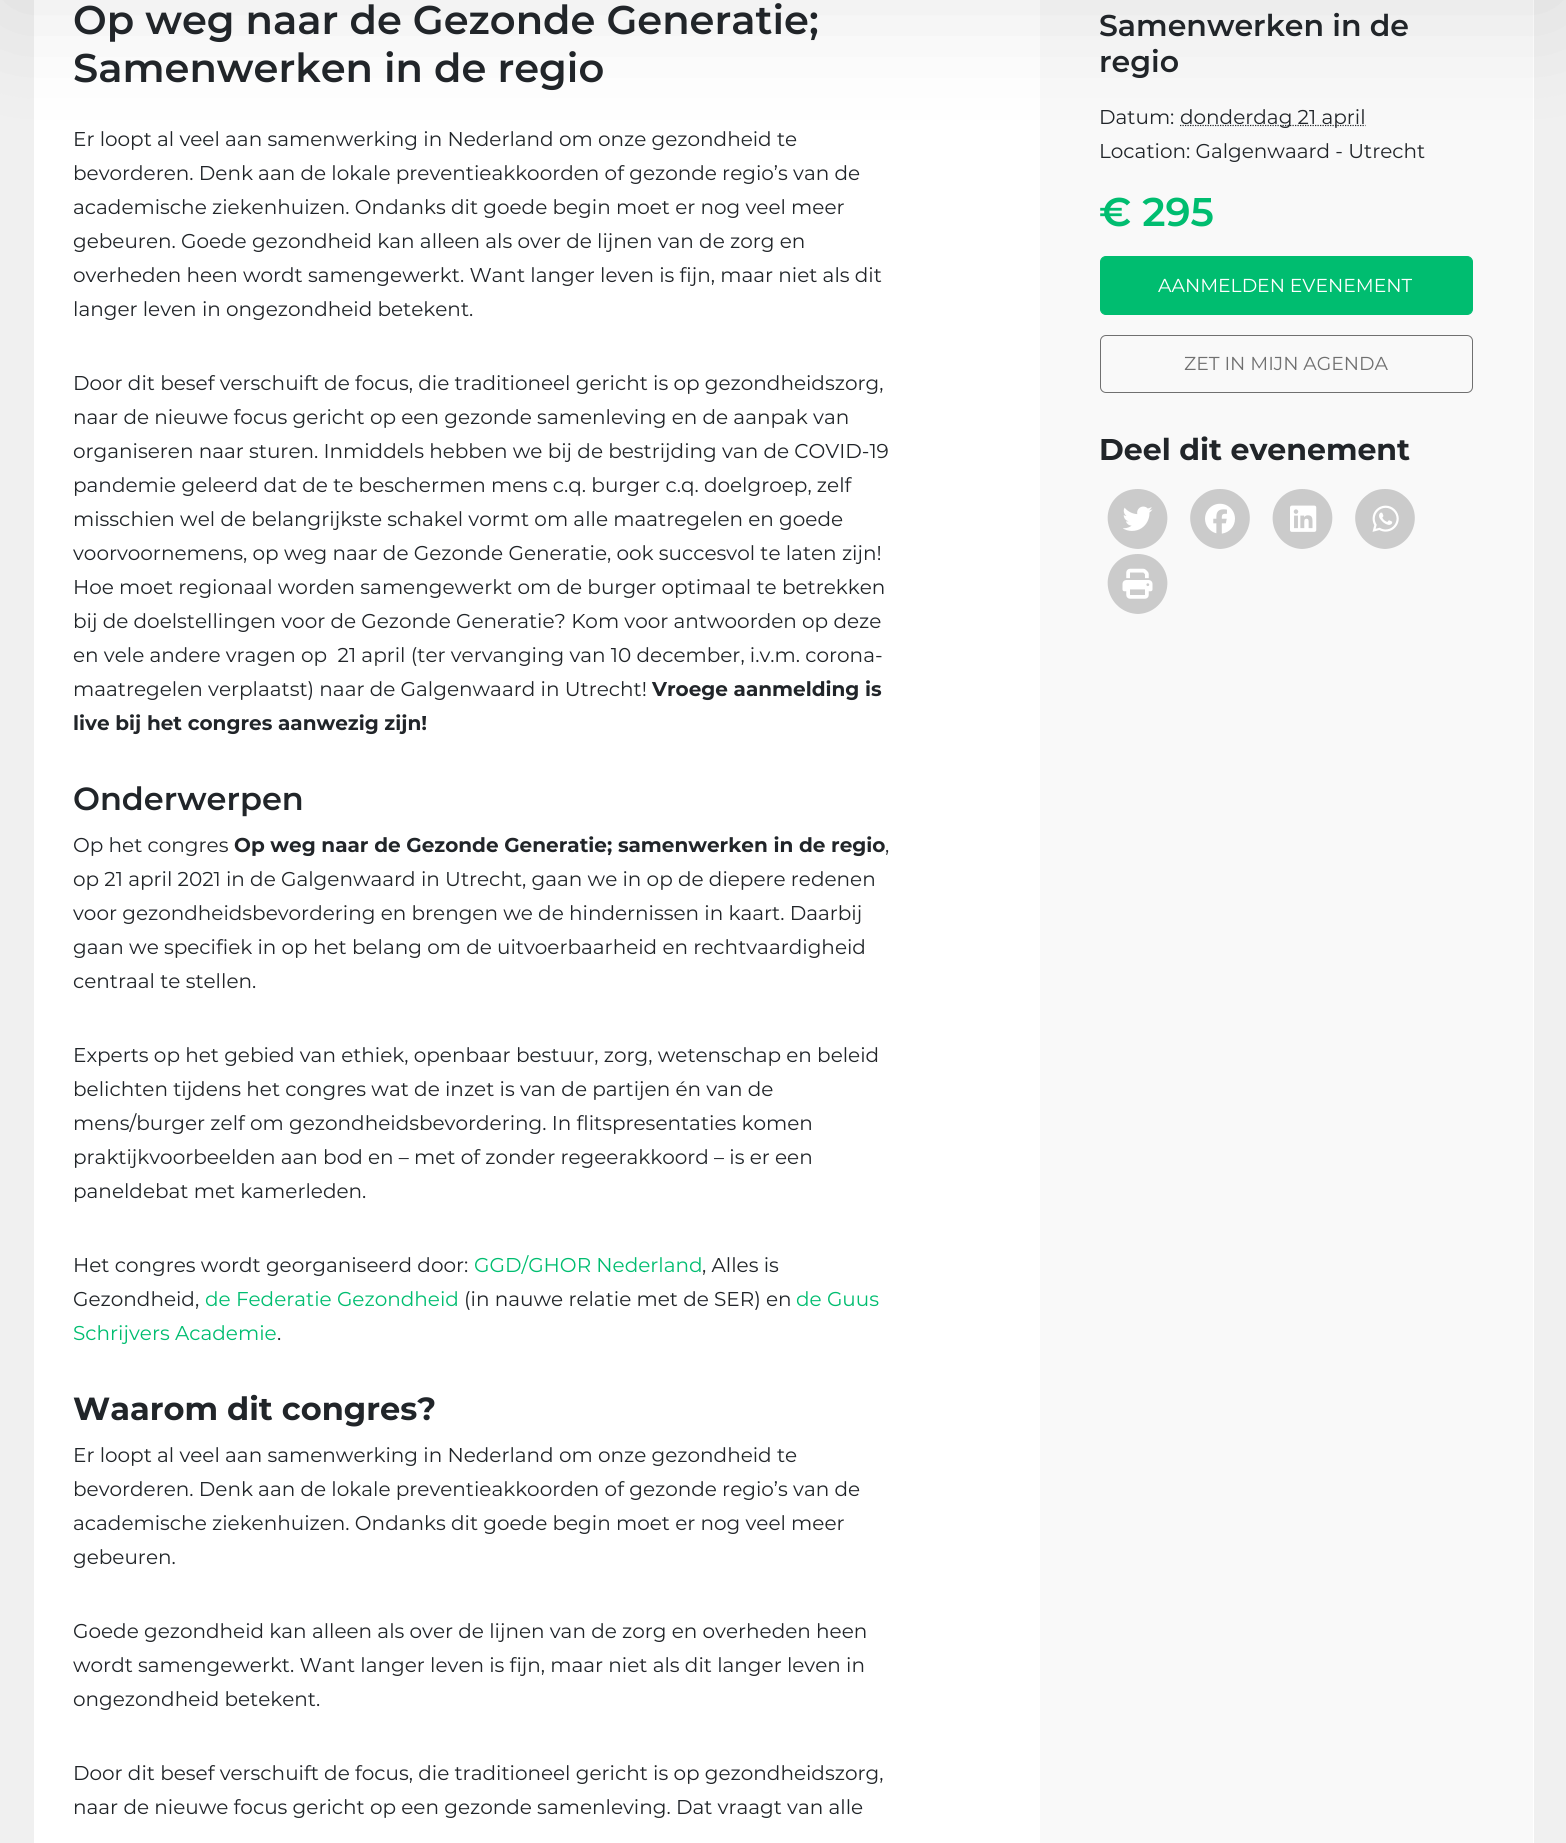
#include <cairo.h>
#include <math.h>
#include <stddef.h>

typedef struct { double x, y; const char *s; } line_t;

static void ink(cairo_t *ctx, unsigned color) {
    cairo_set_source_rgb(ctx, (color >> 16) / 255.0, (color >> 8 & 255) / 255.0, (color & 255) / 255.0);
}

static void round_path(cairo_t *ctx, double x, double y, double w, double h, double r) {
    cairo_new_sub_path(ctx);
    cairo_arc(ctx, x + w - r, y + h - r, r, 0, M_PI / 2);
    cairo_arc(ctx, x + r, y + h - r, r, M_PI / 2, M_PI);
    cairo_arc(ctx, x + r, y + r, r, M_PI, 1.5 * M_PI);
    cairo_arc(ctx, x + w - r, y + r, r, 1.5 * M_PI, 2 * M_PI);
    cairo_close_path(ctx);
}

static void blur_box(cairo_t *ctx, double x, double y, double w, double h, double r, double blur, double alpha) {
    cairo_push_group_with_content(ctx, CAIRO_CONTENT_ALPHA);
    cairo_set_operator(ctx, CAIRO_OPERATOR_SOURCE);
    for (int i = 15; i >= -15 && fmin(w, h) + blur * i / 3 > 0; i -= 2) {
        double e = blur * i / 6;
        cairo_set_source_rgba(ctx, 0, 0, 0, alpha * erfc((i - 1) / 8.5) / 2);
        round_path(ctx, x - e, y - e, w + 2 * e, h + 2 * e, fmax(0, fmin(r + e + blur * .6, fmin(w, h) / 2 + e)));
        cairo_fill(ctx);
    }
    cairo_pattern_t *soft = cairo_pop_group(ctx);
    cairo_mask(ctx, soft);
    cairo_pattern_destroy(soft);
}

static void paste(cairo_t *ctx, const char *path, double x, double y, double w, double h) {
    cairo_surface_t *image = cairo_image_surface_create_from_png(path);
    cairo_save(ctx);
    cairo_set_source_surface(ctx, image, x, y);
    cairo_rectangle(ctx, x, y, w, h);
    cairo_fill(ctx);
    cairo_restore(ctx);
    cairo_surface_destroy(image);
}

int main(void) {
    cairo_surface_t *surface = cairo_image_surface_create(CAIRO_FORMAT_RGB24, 1566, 1843);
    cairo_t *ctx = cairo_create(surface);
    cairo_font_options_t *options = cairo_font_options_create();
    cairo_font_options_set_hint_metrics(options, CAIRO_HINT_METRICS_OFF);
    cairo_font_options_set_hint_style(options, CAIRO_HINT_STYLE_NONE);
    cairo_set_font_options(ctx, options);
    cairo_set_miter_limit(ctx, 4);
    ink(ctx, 0xF0F0F0);
    cairo_paint(ctx);
    ink(ctx, 0xFFFFFF);
    cairo_rectangle(ctx, 34, 0, 1500, 1843);
    cairo_fill(ctx);
    ink(ctx, 0xF9F9F9);
    cairo_rectangle(ctx, 1040, 0, 493, 1843);
    cairo_fill(ctx);
    cairo_new_path(ctx);
    cairo_move_to(ctx, 1180, 125.5);
    cairo_line_to(ctx, 1365.5, 125.5);
    ink(ctx, 0x212529);
    cairo_set_line_width(ctx, 1.2);
    cairo_set_dash(ctx, (double[]){1.25, 1.25}, 2, 0);
    cairo_stroke(ctx);
    ink(ctx, 0x000000);
    blur_box(ctx, 0, -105, 1566, 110, 0, 62.5, 0.1);
    cairo_select_font_face(ctx, "Montserrat SemiBold", CAIRO_FONT_SLANT_NORMAL, CAIRO_FONT_WEIGHT_NORMAL);
    cairo_set_font_size(ctx, 40);
    ink(ctx, 0x212529);
    cairo_move_to(ctx, 73, 34);
    cairo_show_text(ctx, "Op weg naar de Gezonde Generatie;");
    cairo_move_to(ctx, 73, 82);
    cairo_show_text(ctx, "Samenwerken in de regio");
    cairo_select_font_face(ctx, "Montserrat", CAIRO_FONT_SLANT_NORMAL, CAIRO_FONT_WEIGHT_NORMAL);
    cairo_set_font_size(ctx, 20);
    {
        static const line_t items[] = {
            {73, 146, "Er loopt al veel aan samenwerking in Nederland om onze gezondheid te"},
            {73, 180, "bevorderen. Denk aan de lokale preventieakkoorden of gezonde regio’s van de"},
            {73, 214, "academische ziekenhuizen. Ondanks dit goede begin moet er nog veel meer"},
            {73, 248, "gebeuren. Goede gezondheid kan alleen als over de lijnen van de zorg en"},
            {73, 282, "overheden heen wordt samengewerkt. Want langer leven is fijn, maar niet als dit"},
            {73, 316, "langer leven in ongezondheid betekent."},
            {73, 390, "Door dit besef verschuift de focus, die traditioneel gericht is op gezondheidszorg,"},
            {73, 424, "naar de nieuwe focus gericht op een gezonde samenleving en de aanpak van"},
            {73, 458, "organiseren naar sturen. Inmiddels hebben we bij de bestrijding van de COVID-19"},
            {73, 492, "pandemie geleerd dat de te beschermen mens c.q. burger c.q. doelgroep, zelf"},
            {73, 526, "misschien wel de belangrijkste schakel vormt om alle maatregelen en goede"},
            {73, 560, "voorvoornemens, op weg naar de Gezonde Generatie, ook succesvol te laten zijn!"},
            {73, 594, "Hoe moet regionaal worden samengewerkt om de burger optimaal te betrekken"},
            {73, 628, "bij de doelstellingen voor de Gezonde Generatie? Kom voor antwoorden op deze"},
            {73, 662, "en vele andere vragen op  21 april (ter vervanging van 10 december, i.v.m. corona-"},
            {73, 696, "maatregelen verplaatst) naar de Galgenwaard in Utrecht!"},
        };
        for (size_t i = 0; i < sizeof items / sizeof *items; i++) {
            cairo_move_to(ctx, items[i].x, items[i].y);
            cairo_show_text(ctx, items[i].s);
        }
    }
    cairo_select_font_face(ctx, "Montserrat", CAIRO_FONT_SLANT_NORMAL, CAIRO_FONT_WEIGHT_BOLD);
    cairo_move_to(ctx, 652, 696);
    cairo_show_text(ctx, "Vroege aanmelding is");
    cairo_move_to(ctx, 73, 730);
    cairo_show_text(ctx, "live bij het congres aanwezig zijn!");
    cairo_select_font_face(ctx, "Montserrat SemiBold", CAIRO_FONT_SLANT_NORMAL, CAIRO_FONT_WEIGHT_NORMAL);
    cairo_set_font_size(ctx, 32);
    cairo_move_to(ctx, 73, 810);
    cairo_show_text(ctx, "Onderwerpen");
    cairo_select_font_face(ctx, "Montserrat", CAIRO_FONT_SLANT_NORMAL, CAIRO_FONT_WEIGHT_NORMAL);
    cairo_set_font_size(ctx, 20);
    cairo_move_to(ctx, 73, 852);
    cairo_show_text(ctx, "Op het congres");
    cairo_select_font_face(ctx, "Montserrat", CAIRO_FONT_SLANT_NORMAL, CAIRO_FONT_WEIGHT_BOLD);
    cairo_move_to(ctx, 234, 852);
    cairo_show_text(ctx, "Op weg naar de Gezonde Generatie; samenwerken in de regio");
    cairo_select_font_face(ctx, "Montserrat", CAIRO_FONT_SLANT_NORMAL, CAIRO_FONT_WEIGHT_NORMAL);
    {
        static const line_t items[] = {
            {885, 852, ","},
            {73, 886, "op 21 april 2021 in de Galgenwaard in Utrecht, gaan we in op de diepere redenen"},
            {73, 920, "voor gezondheidsbevordering en brengen we de hindernissen in kaart. Daarbij"},
            {73, 954, "gaan we specifiek in op het belang om de uitvoerbaarheid en rechtvaardigheid"},
            {73, 988, "centraal te stellen."},
            {73, 1062, "Experts op het gebied van ethiek, openbaar bestuur, zorg, wetenschap en beleid"},
            {73, 1096, "belichten tijdens het congres wat de inzet is van de partijen én van de"},
            {73, 1130, "mens/burger zelf om gezondheidsbevordering. In flitspresentaties komen"},
            {73, 1164, "praktijkvoorbeelden aan bod en – met of zonder regeerakkoord – is er een"},
            {73, 1198, "paneldebat met kamerleden."},
            {73, 1272, "Het congres wordt georganiseerd door:"},
        };
        for (size_t i = 0; i < sizeof items / sizeof *items; i++) {
            cairo_move_to(ctx, items[i].x, items[i].y);
            cairo_show_text(ctx, items[i].s);
        }
    }
    ink(ctx, 0x00BD70);
    cairo_move_to(ctx, 474, 1272);
    cairo_show_text(ctx, "GGD/GHOR Nederland");
    ink(ctx, 0x212529);
    cairo_move_to(ctx, 702, 1272);
    cairo_show_text(ctx, ", Alles is");
    cairo_move_to(ctx, 73, 1306);
    cairo_show_text(ctx, "Gezondheid,");
    ink(ctx, 0x00BD70);
    cairo_move_to(ctx, 205, 1306);
    cairo_show_text(ctx, "de Federatie Gezondheid");
    ink(ctx, 0x212529);
    cairo_move_to(ctx, 464, 1306);
    cairo_show_text(ctx, "(in nauwe relatie met de SER) en");
    ink(ctx, 0x00BD70);
    cairo_move_to(ctx, 796, 1306);
    cairo_show_text(ctx, "de Guus");
    cairo_move_to(ctx, 73, 1340);
    cairo_show_text(ctx, "Schrijvers Academie");
    ink(ctx, 0x212529);
    cairo_move_to(ctx, 277, 1340);
    cairo_show_text(ctx, ".");
    cairo_select_font_face(ctx, "Montserrat", CAIRO_FONT_SLANT_NORMAL, CAIRO_FONT_WEIGHT_BOLD);
    cairo_set_font_size(ctx, 32);
    cairo_move_to(ctx, 73, 1420);
    cairo_show_text(ctx, "Waarom dit congres?");
    cairo_select_font_face(ctx, "Montserrat", CAIRO_FONT_SLANT_NORMAL, CAIRO_FONT_WEIGHT_NORMAL);
    cairo_set_font_size(ctx, 20);
    {
        static const line_t items[] = {
            {73, 1462, "Er loopt al veel aan samenwerking in Nederland om onze gezondheid te"},
            {73, 1496, "bevorderen. Denk aan de lokale preventieakkoorden of gezonde regio’s van de"},
            {73, 1530, "academische ziekenhuizen. Ondanks dit goede begin moet er nog veel meer"},
            {73, 1564, "gebeuren."},
            {73, 1638, "Goede gezondheid kan alleen als over de lijnen van de zorg en overheden heen"},
            {73, 1672, "wordt samengewerkt. Want langer leven is fijn, maar niet als dit langer leven in"},
            {73, 1706, "ongezondheid betekent."},
            {73, 1780, "Door dit besef verschuift de focus, die traditioneel gericht is op gezondheidszorg,"},
            {73, 1814, "naar de nieuwe focus gericht op een gezonde samenleving. Dat vraagt van alle"},
        };
        for (size_t i = 0; i < sizeof items / sizeof *items; i++) {
            cairo_move_to(ctx, items[i].x, items[i].y);
            cairo_show_text(ctx, items[i].s);
        }
    }
    cairo_select_font_face(ctx, "Montserrat SemiBold", CAIRO_FONT_SLANT_NORMAL, CAIRO_FONT_WEIGHT_NORMAL);
    cairo_set_font_size(ctx, 30);
    cairo_move_to(ctx, 1099, 36);
    cairo_show_text(ctx, "Samenwerken in de");
    cairo_move_to(ctx, 1099, 72);
    cairo_show_text(ctx, "regio");
    cairo_select_font_face(ctx, "Montserrat", CAIRO_FONT_SLANT_NORMAL, CAIRO_FONT_WEIGHT_NORMAL);
    cairo_set_font_size(ctx, 20);
    {
        static const line_t items[] = {
            {1099, 124, "Datum:"},
            {1180, 124, "donderdag 21 april"},
            {1099, 158, "Location: Galgenwaard - Utrecht"},
        };
        for (size_t i = 0; i < sizeof items / sizeof *items; i++) {
            cairo_move_to(ctx, items[i].x, items[i].y);
            cairo_show_text(ctx, items[i].s);
        }
    }
    cairo_select_font_face(ctx, "Montserrat SemiBold", CAIRO_FONT_SLANT_NORMAL, CAIRO_FONT_WEIGHT_NORMAL);
    cairo_set_font_size(ctx, 40);
    ink(ctx, 0x00BD70);
    cairo_move_to(ctx, 1099, 226);
    cairo_show_text(ctx, "€ 295");
    round_path(ctx, 1100.5, 256.5, 372, 58, 5.5);
    cairo_fill_preserve(ctx);
    cairo_set_line_width(ctx, 1);
    cairo_set_dash(ctx, NULL, 0, 0);
    cairo_stroke(ctx);
    cairo_select_font_face(ctx, "Montserrat", CAIRO_FONT_SLANT_NORMAL, CAIRO_FONT_WEIGHT_NORMAL);
    cairo_set_font_size(ctx, 18.75);
    ink(ctx, 0xFFFFFF);
    cairo_move_to(ctx, 1158, 292);
    cairo_show_text(ctx, "AANMELDEN EVENEMENT");
    round_path(ctx, 1100.5, 335.5, 372, 57, 5.5);
    ink(ctx, 0x707070);
    cairo_stroke(ctx);
    cairo_move_to(ctx, 1184, 370);
    cairo_show_text(ctx, "ZET IN MIJN AGENDA");
    cairo_select_font_face(ctx, "Montserrat", CAIRO_FONT_SLANT_NORMAL, CAIRO_FONT_WEIGHT_BOLD);
    cairo_set_font_size(ctx, 30);
    ink(ctx, 0x212529);
    cairo_move_to(ctx, 1099, 460);
    cairo_show_text(ctx, "Deel dit evenement");
    ink(ctx, 0xCBCBCB);
    cairo_new_path(ctx);
    cairo_move_to(ctx, 1138, 549);
    cairo_curve_to(ctx, 1166, 548, 1178, 512, 1156, 495);
    cairo_curve_to(ctx, 1151, 491, 1144, 489, 1138, 489);
    cairo_curve_to(ctx, 1131, 489, 1124, 491, 1119, 495);
    cairo_curve_to(ctx, 1097, 512, 1109, 548, 1138, 549);
    cairo_close_path(ctx);
    cairo_fill(ctx);
    paste(ctx, "media/1.png", 1123, 506, 30, 25);
    cairo_new_path(ctx);
    cairo_move_to(ctx, 1220, 549);
    cairo_curve_to(ctx, 1248, 548, 1261, 512, 1238, 495);
    cairo_curve_to(ctx, 1233, 491, 1227, 489, 1220, 489);
    cairo_curve_to(ctx, 1213, 489, 1207, 491, 1202, 495);
    cairo_curve_to(ctx, 1179, 512, 1192, 548, 1220, 549);
    cairo_close_path(ctx);
    cairo_fill(ctx);
    paste(ctx, "media/2.png", 1205, 503, 30, 31);
    cairo_new_path(ctx);
    cairo_move_to(ctx, 1302, 549);
    cairo_curve_to(ctx, 1331, 548, 1343, 512, 1321, 495);
    cairo_curve_to(ctx, 1316, 491, 1309, 489, 1302, 489);
    cairo_curve_to(ctx, 1296, 489, 1289, 491, 1284, 495);
    cairo_curve_to(ctx, 1262, 512, 1274, 548, 1302, 549);
    cairo_close_path(ctx);
    cairo_fill(ctx);
    paste(ctx, "media/3.png", 1290, 505, 27, 27);
    cairo_new_path(ctx);
    cairo_move_to(ctx, 1385, 549);
    cairo_curve_to(ctx, 1413, 548, 1426, 512, 1403, 495);
    cairo_curve_to(ctx, 1398, 491, 1392, 489, 1385, 489);
    cairo_curve_to(ctx, 1378, 489, 1372, 491, 1367, 495);
    cairo_curve_to(ctx, 1344, 512, 1357, 548, 1385, 549);
    cairo_close_path(ctx);
    cairo_fill(ctx);
    paste(ctx, "media/4.png", 1372, 505, 27, 27);
    cairo_new_path(ctx);
    cairo_move_to(ctx, 1138, 614);
    cairo_curve_to(ctx, 1166, 613, 1178, 577, 1156, 560);
    cairo_curve_to(ctx, 1151, 556, 1144, 554, 1138, 554);
    cairo_curve_to(ctx, 1131, 554, 1124, 556, 1119, 560);
    cairo_curve_to(ctx, 1097, 577, 1109, 613, 1138, 614);
    cairo_close_path(ctx);
    cairo_fill(ctx);
    paste(ctx, "media/5.png", 1122, 568, 31, 31);
    cairo_surface_write_to_png(surface, "image.png");
    cairo_font_options_destroy(options);
    cairo_destroy(ctx);
    cairo_surface_destroy(surface);
    return 0;
}
